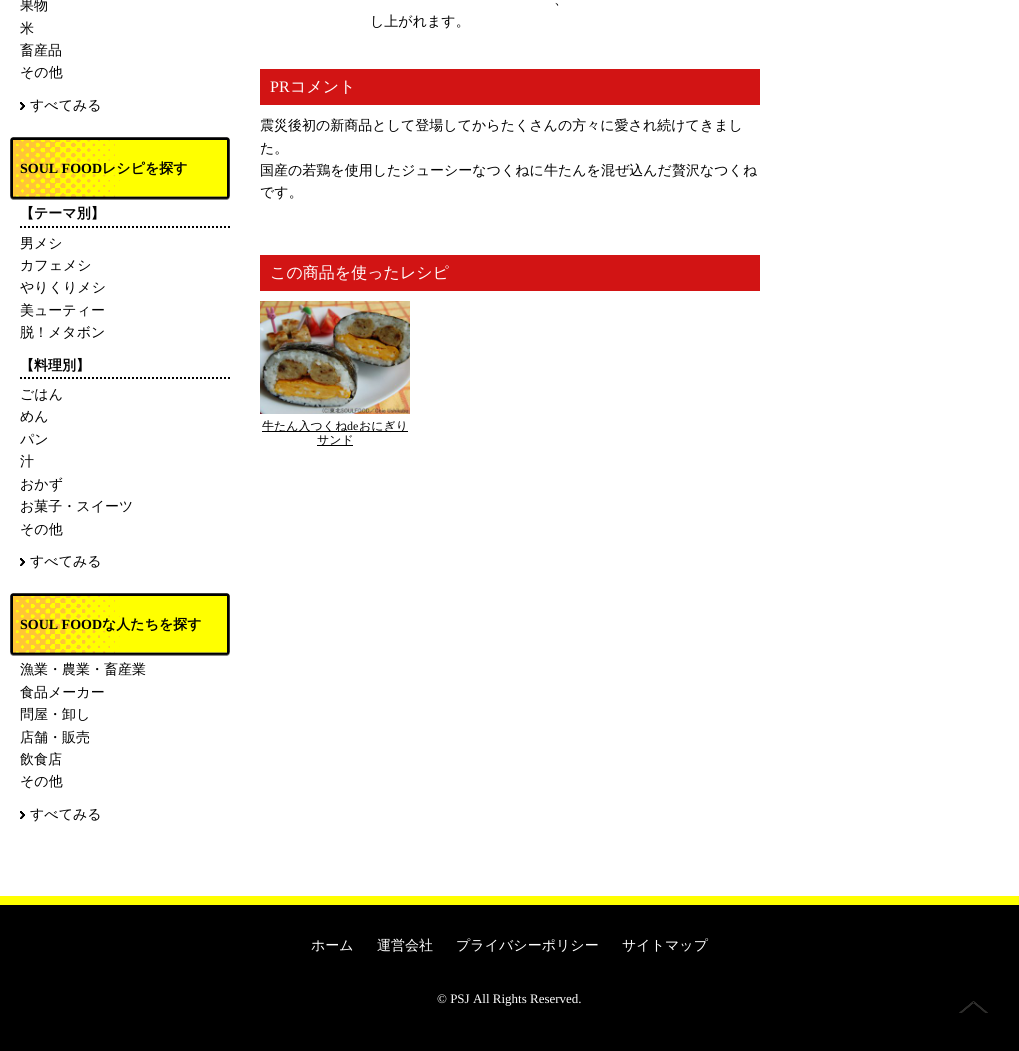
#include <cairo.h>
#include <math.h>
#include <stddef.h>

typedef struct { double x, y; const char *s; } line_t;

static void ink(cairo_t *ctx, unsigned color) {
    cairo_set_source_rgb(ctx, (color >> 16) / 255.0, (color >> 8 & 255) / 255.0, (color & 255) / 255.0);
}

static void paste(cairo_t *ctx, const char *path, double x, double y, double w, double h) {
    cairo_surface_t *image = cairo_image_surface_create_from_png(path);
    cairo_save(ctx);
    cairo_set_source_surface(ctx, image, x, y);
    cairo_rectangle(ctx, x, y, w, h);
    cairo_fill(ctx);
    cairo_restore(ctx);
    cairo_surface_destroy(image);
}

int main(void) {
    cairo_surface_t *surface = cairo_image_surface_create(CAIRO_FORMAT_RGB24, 1019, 1051);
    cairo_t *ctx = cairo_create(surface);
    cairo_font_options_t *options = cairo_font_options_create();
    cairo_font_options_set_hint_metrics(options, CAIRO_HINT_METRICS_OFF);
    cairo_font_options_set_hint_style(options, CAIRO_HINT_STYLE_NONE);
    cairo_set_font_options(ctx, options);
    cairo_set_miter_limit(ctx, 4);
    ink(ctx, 0xFFFFFF);
    cairo_paint(ctx);
    cairo_select_font_face(ctx, "WenQuanYi Zen Hei Medium", CAIRO_FONT_SLANT_NORMAL, CAIRO_FONT_WEIGHT_NORMAL);
    cairo_set_font_size(ctx, 14);
    ink(ctx, 0x000000);
    {
        static const line_t items[] = {
            {20, 10, "果物"},
            {20, 33, "米"},
            {20, 55, "畜産品"},
            {20, 77, "その他"},
        };
        for (size_t i = 0; i < sizeof items / sizeof *items; i++) {
            cairo_move_to(ctx, items[i].x, items[i].y);
            cairo_show_text(ctx, items[i].s);
        }
    }
    paste(ctx, "media/1.png", 20, 102, 5, 8);
    cairo_move_to(ctx, 30, 110);
    cairo_show_text(ctx, "すべてみる");
    paste(ctx, "media/2.png", 10, 137, 220, 63);
    cairo_select_font_face(ctx, "Liberation Serif", CAIRO_FONT_SLANT_NORMAL, CAIRO_FONT_WEIGHT_BOLD);
    cairo_move_to(ctx, 20, 173);
    cairo_show_text(ctx, "SOUL FOOD");
    cairo_select_font_face(ctx, "WenQuanYi Zen Hei", CAIRO_FONT_SLANT_NORMAL, CAIRO_FONT_WEIGHT_BOLD);
    cairo_move_to(ctx, 102, 173);
    cairo_show_text(ctx, "レシピを探す");
    cairo_new_path(ctx);
    cairo_move_to(ctx, 20, 227);
    cairo_line_to(ctx, 230, 227);
    cairo_set_dash(ctx, (double[]){2, 2}, 2, 0);
    cairo_stroke(ctx);
    cairo_move_to(ctx, 20, 218);
    cairo_show_text(ctx, "【テーマ別】");
    cairo_select_font_face(ctx, "WenQuanYi Zen Hei Medium", CAIRO_FONT_SLANT_NORMAL, CAIRO_FONT_WEIGHT_NORMAL);
    {
        static const line_t items[] = {
            {20, 248, "男メシ"},
            {20, 270, "カフェメシ"},
            {20, 292, "やりくりメシ"},
            {20, 315, "美ューティー"},
            {20, 337, "脱！メタボン"},
        };
        for (size_t i = 0; i < sizeof items / sizeof *items; i++) {
            cairo_move_to(ctx, items[i].x, items[i].y);
            cairo_show_text(ctx, items[i].s);
        }
    }
    cairo_new_path(ctx);
    cairo_move_to(ctx, 20, 378);
    cairo_line_to(ctx, 230, 378);
    cairo_stroke(ctx);
    cairo_select_font_face(ctx, "WenQuanYi Zen Hei", CAIRO_FONT_SLANT_NORMAL, CAIRO_FONT_WEIGHT_BOLD);
    cairo_move_to(ctx, 20, 370);
    cairo_show_text(ctx, "【料理別】");
    cairo_select_font_face(ctx, "WenQuanYi Zen Hei Medium", CAIRO_FONT_SLANT_NORMAL, CAIRO_FONT_WEIGHT_NORMAL);
    {
        static const line_t items[] = {
            {20, 399, "ごはん"},
            {20, 421, "めん"},
            {20, 444, "パン"},
            {20, 466, "汁"},
            {20, 489, "おかず"},
            {20, 511, "お菓子・スイーツ"},
            {20, 534, "その他"},
        };
        for (size_t i = 0; i < sizeof items / sizeof *items; i++) {
            cairo_move_to(ctx, items[i].x, items[i].y);
            cairo_show_text(ctx, items[i].s);
        }
    }
    paste(ctx, "media/1.png", 20, 558, 5, 8);
    cairo_move_to(ctx, 30, 566);
    cairo_show_text(ctx, "すべてみる");
    paste(ctx, "media/2.png", 10, 593, 220, 63);
    cairo_select_font_face(ctx, "Liberation Serif", CAIRO_FONT_SLANT_NORMAL, CAIRO_FONT_WEIGHT_BOLD);
    cairo_move_to(ctx, 20, 629);
    cairo_show_text(ctx, "SOUL FOOD");
    cairo_select_font_face(ctx, "WenQuanYi Zen Hei", CAIRO_FONT_SLANT_NORMAL, CAIRO_FONT_WEIGHT_BOLD);
    cairo_move_to(ctx, 102, 629);
    cairo_show_text(ctx, "な人たちを探す");
    cairo_select_font_face(ctx, "WenQuanYi Zen Hei Medium", CAIRO_FONT_SLANT_NORMAL, CAIRO_FONT_WEIGHT_NORMAL);
    {
        static const line_t items[] = {
            {20, 674, "漁業・農業・畜産業"},
            {20, 697, "食品メーカー"},
            {20, 719, "問屋・卸し"},
            {20, 742, "店舗・販売"},
            {20, 764, "飲食店"},
            {20, 786, "その他"},
        };
        for (size_t i = 0; i < sizeof items / sizeof *items; i++) {
            cairo_move_to(ctx, items[i].x, items[i].y);
            cairo_show_text(ctx, items[i].s);
        }
    }
    paste(ctx, "media/1.png", 20, 811, 5, 8);
    {
        static const line_t items[] = {
            {30, 819, "すべてみる"},
            {554, 4, "、"},
            {370, 26, "し上がれます。"},
        };
        for (size_t i = 0; i < sizeof items / sizeof *items; i++) {
            cairo_move_to(ctx, items[i].x, items[i].y);
            cairo_show_text(ctx, items[i].s);
        }
    }
    ink(ctx, 0xD21414);
    cairo_rectangle(ctx, 260, 69, 500, 36);
    cairo_fill(ctx);
    cairo_select_font_face(ctx, "Liberation Serif", CAIRO_FONT_SLANT_NORMAL, CAIRO_FONT_WEIGHT_NORMAL);
    cairo_set_font_size(ctx, 16);
    ink(ctx, 0xFFFFFF);
    cairo_move_to(ctx, 270, 92);
    cairo_show_text(ctx, "PR");
    cairo_select_font_face(ctx, "WenQuanYi Zen Hei Medium", CAIRO_FONT_SLANT_NORMAL, CAIRO_FONT_WEIGHT_NORMAL);
    cairo_move_to(ctx, 290, 92);
    cairo_show_text(ctx, "コメント");
    cairo_set_font_size(ctx, 14);
    ink(ctx, 0x000000);
    {
        static const line_t items[] = {
            {260, 130, "震災後初の新商品として登場してからたくさんの方々に愛され続けてきまし"},
            {260, 153, "た。"},
            {260, 175, "国産の若鶏を使用したジューシーなつくねに牛たんを混ぜ込んだ贅沢なつくね"},
            {260, 197, "です。"},
        };
        for (size_t i = 0; i < sizeof items / sizeof *items; i++) {
            cairo_move_to(ctx, items[i].x, items[i].y);
            cairo_show_text(ctx, items[i].s);
        }
    }
    ink(ctx, 0xD21414);
    cairo_rectangle(ctx, 260, 255, 500, 36);
    cairo_fill(ctx);
    cairo_set_font_size(ctx, 16);
    ink(ctx, 0xFFFFFF);
    cairo_move_to(ctx, 270, 278);
    cairo_show_text(ctx, "この商品を使ったレシピ");
    paste(ctx, "media/3.png", 260, 301, 150, 113);
    ink(ctx, 0x000000);
    cairo_rectangle(ctx, 262, 431, 146, 1);
    cairo_fill(ctx);
    cairo_set_font_size(ctx, 12);
    cairo_move_to(ctx, 262, 430);
    cairo_show_text(ctx, "牛たん入つくね");
    cairo_select_font_face(ctx, "Liberation Serif", CAIRO_FONT_SLANT_NORMAL, CAIRO_FONT_WEIGHT_NORMAL);
    cairo_move_to(ctx, 347, 430);
    cairo_show_text(ctx, "de");
    cairo_select_font_face(ctx, "WenQuanYi Zen Hei Medium", CAIRO_FONT_SLANT_NORMAL, CAIRO_FONT_WEIGHT_NORMAL);
    cairo_move_to(ctx, 359, 430);
    cairo_show_text(ctx, "おにぎり");
    cairo_rectangle(ctx, 317, 445, 36, 1);
    cairo_fill(ctx);
    cairo_move_to(ctx, 317, 444);
    cairo_show_text(ctx, "サンド");
    cairo_rectangle(ctx, 0, 905, 1019, 146);
    cairo_fill(ctx);
    ink(ctx, 0xFFFF00);
    cairo_rectangle(ctx, 0, 896, 1019, 9);
    cairo_fill(ctx);
    cairo_set_font_size(ctx, 14);
    ink(ctx, 0xFFFFFF);
    {
        static const line_t items[] = {
            {311, 950, "ホーム"},
            {377, 950, "運営会社"},
            {456, 950, "プライバシーポリシー"},
            {622, 950, "サイトマップ"},
        };
        for (size_t i = 0; i < sizeof items / sizeof *items; i++) {
            cairo_move_to(ctx, items[i].x, items[i].y);
            cairo_show_text(ctx, items[i].s);
        }
    }
    cairo_select_font_face(ctx, "Liberation Serif", CAIRO_FONT_SLANT_NORMAL, CAIRO_FONT_WEIGHT_NORMAL);
    cairo_set_font_size(ctx, 13);
    cairo_move_to(ctx, 437, 1003);
    cairo_show_text(ctx, "© PSJ All Rights Reserved.");
    paste(ctx, "media/4.png", 959, 1001, 29, 12);
    cairo_surface_write_to_png(surface, "image.png");
    cairo_font_options_destroy(options);
    cairo_destroy(ctx);
    cairo_surface_destroy(surface);
    return 0;
}
